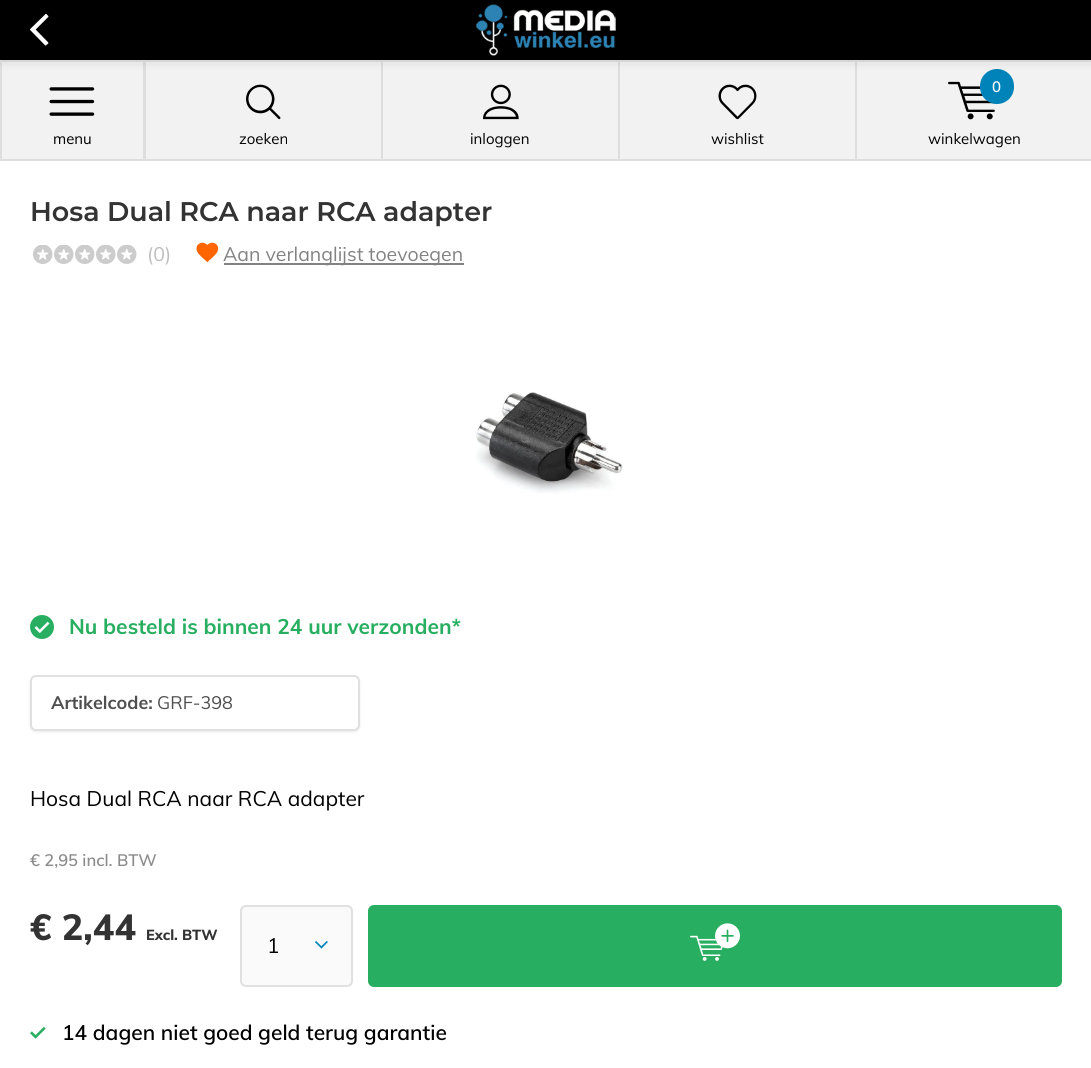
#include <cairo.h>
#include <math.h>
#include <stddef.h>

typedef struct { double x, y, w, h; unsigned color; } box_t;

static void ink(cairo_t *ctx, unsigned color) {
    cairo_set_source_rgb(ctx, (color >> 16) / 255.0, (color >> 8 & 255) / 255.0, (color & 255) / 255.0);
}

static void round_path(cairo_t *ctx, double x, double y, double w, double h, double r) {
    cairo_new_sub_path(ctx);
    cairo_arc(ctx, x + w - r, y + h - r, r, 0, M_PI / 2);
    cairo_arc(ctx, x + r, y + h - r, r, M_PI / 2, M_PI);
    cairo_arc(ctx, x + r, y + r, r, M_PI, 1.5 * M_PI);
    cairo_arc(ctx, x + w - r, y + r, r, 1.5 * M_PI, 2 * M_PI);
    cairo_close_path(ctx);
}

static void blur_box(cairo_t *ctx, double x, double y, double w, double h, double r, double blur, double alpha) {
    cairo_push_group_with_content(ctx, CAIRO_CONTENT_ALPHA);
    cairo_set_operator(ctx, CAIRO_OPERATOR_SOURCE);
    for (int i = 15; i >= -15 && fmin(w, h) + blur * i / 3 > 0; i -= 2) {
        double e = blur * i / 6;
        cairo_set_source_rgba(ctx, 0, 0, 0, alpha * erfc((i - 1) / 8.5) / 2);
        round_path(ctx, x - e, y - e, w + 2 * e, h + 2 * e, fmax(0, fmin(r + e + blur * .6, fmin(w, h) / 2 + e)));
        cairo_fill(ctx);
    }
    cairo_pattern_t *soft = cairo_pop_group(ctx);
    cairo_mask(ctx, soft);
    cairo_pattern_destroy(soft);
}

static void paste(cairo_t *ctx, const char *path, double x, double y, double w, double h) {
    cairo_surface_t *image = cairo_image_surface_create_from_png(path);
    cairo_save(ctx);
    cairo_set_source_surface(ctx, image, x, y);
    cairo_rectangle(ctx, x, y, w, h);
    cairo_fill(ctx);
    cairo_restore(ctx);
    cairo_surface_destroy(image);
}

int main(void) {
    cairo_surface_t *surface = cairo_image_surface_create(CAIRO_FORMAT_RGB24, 1091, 1068);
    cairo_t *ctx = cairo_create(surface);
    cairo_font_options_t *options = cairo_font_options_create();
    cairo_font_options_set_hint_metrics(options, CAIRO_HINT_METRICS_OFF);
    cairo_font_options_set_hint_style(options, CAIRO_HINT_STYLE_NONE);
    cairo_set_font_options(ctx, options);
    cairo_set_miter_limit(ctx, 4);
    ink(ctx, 0xFFFFFF);
    cairo_paint(ctx);
    {
        static const box_t items[] = {
            {2, 62, 1089, 97, 0xF2F2F2},
            {0, 60, 1091, 2, 0xE0E0E0},
            {144, 159, 947, 2, 0xDEDEDE},
            {143, 62, 3, 99, 0xDEDEDE},
            {0, 159, 144, 2, 0xDEDEDE},
            {0, 62, 2, 99, 0xDEDEDE},
            {381, 62, 2, 99, 0xDEDEDE},
            {618, 62, 2, 99, 0xDEDEDE},
            {855, 62, 2, 99, 0xDEDEDE},
        };
        for (size_t i = 0; i < sizeof items / sizeof *items; i++) {
            ink(ctx, items[i].color);
            cairo_rectangle(ctx, items[i].x, items[i].y, items[i].w, items[i].h);
            cairo_fill(ctx);
        }
    }
    paste(ctx, "media/7.png", 948, 81, 49, 39);
    ink(ctx, 0x0083B8);
    round_path(ctx, 980, 69, 34, 35, 17);
    cairo_fill(ctx);
    ink(ctx, 0x000000);
    blur_box(ctx, 0, 6, 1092, 60, 0, 3, 0.05);
    ink(ctx, 0x000000);
    cairo_rectangle(ctx, 0, 0, 1091, 60);
    cairo_fill(ctx);
    paste(ctx, "media/1.png", 30, 14, 19, 32);
    paste(ctx, "media/2.png", 476, 4, 140, 52);
    paste(ctx, "media/3.png", 49, 87, 46, 29);
    cairo_select_font_face(ctx, "Muli", CAIRO_FONT_SLANT_NORMAL, CAIRO_FONT_WEIGHT_NORMAL);
    cairo_set_font_size(ctx, 15);
    cairo_move_to(ctx, 53, 144);
    cairo_show_text(ctx, "menu");
    paste(ctx, "media/4.png", 246, 84, 35, 36);
    cairo_move_to(ctx, 239, 144);
    cairo_show_text(ctx, "zoeken");
    paste(ctx, "media/5.png", 483, 84, 36, 36);
    cairo_move_to(ctx, 470, 144);
    cairo_show_text(ctx, "inloggen");
    paste(ctx, "media/6.png", 718, 84, 39, 36);
    cairo_move_to(ctx, 711, 144);
    cairo_show_text(ctx, "wishlist");
    cairo_select_font_face(ctx, "Muli SemiBold", CAIRO_FONT_SLANT_NORMAL, CAIRO_FONT_WEIGHT_NORMAL);
    ink(ctx, 0xFFFFFF);
    cairo_move_to(ctx, 992, 92);
    cairo_show_text(ctx, "0");
    cairo_select_font_face(ctx, "Muli", CAIRO_FONT_SLANT_NORMAL, CAIRO_FONT_WEIGHT_NORMAL);
    ink(ctx, 0x000000);
    cairo_move_to(ctx, 928, 144);
    cairo_show_text(ctx, "winkelwagen");
    cairo_select_font_face(ctx, "Montserrat SemiBold", CAIRO_FONT_SLANT_NORMAL, CAIRO_FONT_WEIGHT_NORMAL);
    cairo_set_font_size(ctx, 27);
    ink(ctx, 0x333333);
    cairo_move_to(ctx, 30, 221);
    cairo_show_text(ctx, "Hosa Dual RCA naar RCA adapter");
    paste(ctx, "media/8.png", 33, 245, 20, 19);
    paste(ctx, "media/8.png", 54, 245, 20, 19);
    paste(ctx, "media/8.png", 75, 245, 20, 19);
    paste(ctx, "media/8.png", 96, 245, 20, 19);
    paste(ctx, "media/8.png", 117, 245, 20, 19);
    cairo_select_font_face(ctx, "Muli", CAIRO_FONT_SLANT_NORMAL, CAIRO_FONT_WEIGHT_NORMAL);
    cairo_set_font_size(ctx, 19.5);
    ink(ctx, 0xBDBDBD);
    cairo_move_to(ctx, 147, 261);
    cairo_show_text(ctx, "(0)");
    paste(ctx, "media/9.png", 196, 242, 23, 21);
    ink(ctx, 0x828282);
    cairo_rectangle(ctx, 224, 263, 240, 2);
    cairo_fill(ctx);
    cairo_move_to(ctx, 223, 261);
    cairo_show_text(ctx, "Aan verlanglijst toevoegen");
    paste(ctx, "media/10.png", 475, 392, 148, 102);
    paste(ctx, "media/11.png", 30, 615, 24, 24);
    cairo_select_font_face(ctx, "Muli", CAIRO_FONT_SLANT_NORMAL, CAIRO_FONT_WEIGHT_BOLD);
    cairo_set_font_size(ctx, 21);
    ink(ctx, 0x27AE60);
    cairo_move_to(ctx, 69, 634);
    cairo_show_text(ctx, "Nu besteld is binnen 24 uur verzonden*");
    ink(ctx, 0x000000);
    blur_box(ctx, 30, 677, 330, 55, 6, 1.5, 0.08);
    ink(ctx, 0xFFFFFF);
    round_path(ctx, 31, 676, 328, 54, 5);
    cairo_fill_preserve(ctx);
    ink(ctx, 0xE0E0E0);
    cairo_stroke(ctx);
    cairo_set_font_size(ctx, 18);
    ink(ctx, 0x4F4F4F);
    cairo_move_to(ctx, 51, 709);
    cairo_show_text(ctx, "Artikelcode:");
    cairo_select_font_face(ctx, "Muli", CAIRO_FONT_SLANT_NORMAL, CAIRO_FONT_WEIGHT_NORMAL);
    cairo_move_to(ctx, 157, 709);
    cairo_show_text(ctx, "GRF-398");
    cairo_set_font_size(ctx, 21);
    ink(ctx, 0x000000);
    cairo_move_to(ctx, 30, 806);
    cairo_show_text(ctx, "Hosa Dual RCA naar RCA adapter");
    cairo_select_font_face(ctx, "Muli SemiBold", CAIRO_FONT_SLANT_NORMAL, CAIRO_FONT_WEIGHT_NORMAL);
    cairo_set_font_size(ctx, 16.5);
    ink(ctx, 0x8C8C8C);
    cairo_move_to(ctx, 30, 866);
    cairo_show_text(ctx, "€ 2,95 incl. BTW");
    cairo_select_font_face(ctx, "Muli ExtraBold", CAIRO_FONT_SLANT_NORMAL, CAIRO_FONT_WEIGHT_NORMAL);
    cairo_set_font_size(ctx, 36);
    ink(ctx, 0x333333);
    cairo_move_to(ctx, 30, 940);
    cairo_show_text(ctx, "€ 2,44");
    cairo_set_font_size(ctx, 14.5);
    cairo_move_to(ctx, 146, 940);
    cairo_show_text(ctx, "Excl. BTW");
    ink(ctx, 0xFAFAFA);
    round_path(ctx, 240, 905, 113, 82, 6);
    cairo_fill(ctx);
    paste(ctx, "media/12.png", 315, 941, 13, 8);
    round_path(ctx, 241, 906, 111, 80, 5);
    ink(ctx, 0xE0E0E0);
    cairo_stroke(ctx);
    cairo_select_font_face(ctx, "Muli", CAIRO_FONT_SLANT_NORMAL, CAIRO_FONT_WEIGHT_NORMAL);
    cairo_set_font_size(ctx, 21);
    ink(ctx, 0x000000);
    cairo_move_to(ctx, 267, 953);
    cairo_show_text(ctx, "1");
    ink(ctx, 0x27AE60);
    round_path(ctx, 369, 906, 692, 80, 5);
    cairo_fill_preserve(ctx);
    cairo_stroke(ctx);
    paste(ctx, "media/13.png", 690, 923, 50, 38);
    paste(ctx, "media/14.png", 30, 1026, 16, 13);
    cairo_select_font_face(ctx, "Muli SemiBold", CAIRO_FONT_SLANT_NORMAL, CAIRO_FONT_WEIGHT_NORMAL);
    ink(ctx, 0x000000);
    cairo_move_to(ctx, 62, 1040);
    cairo_show_text(ctx, "14 dagen niet goed geld terug garantie");
    cairo_surface_write_to_png(surface, "image.png");
    cairo_font_options_destroy(options);
    cairo_destroy(ctx);
    cairo_surface_destroy(surface);
    return 0;
}
